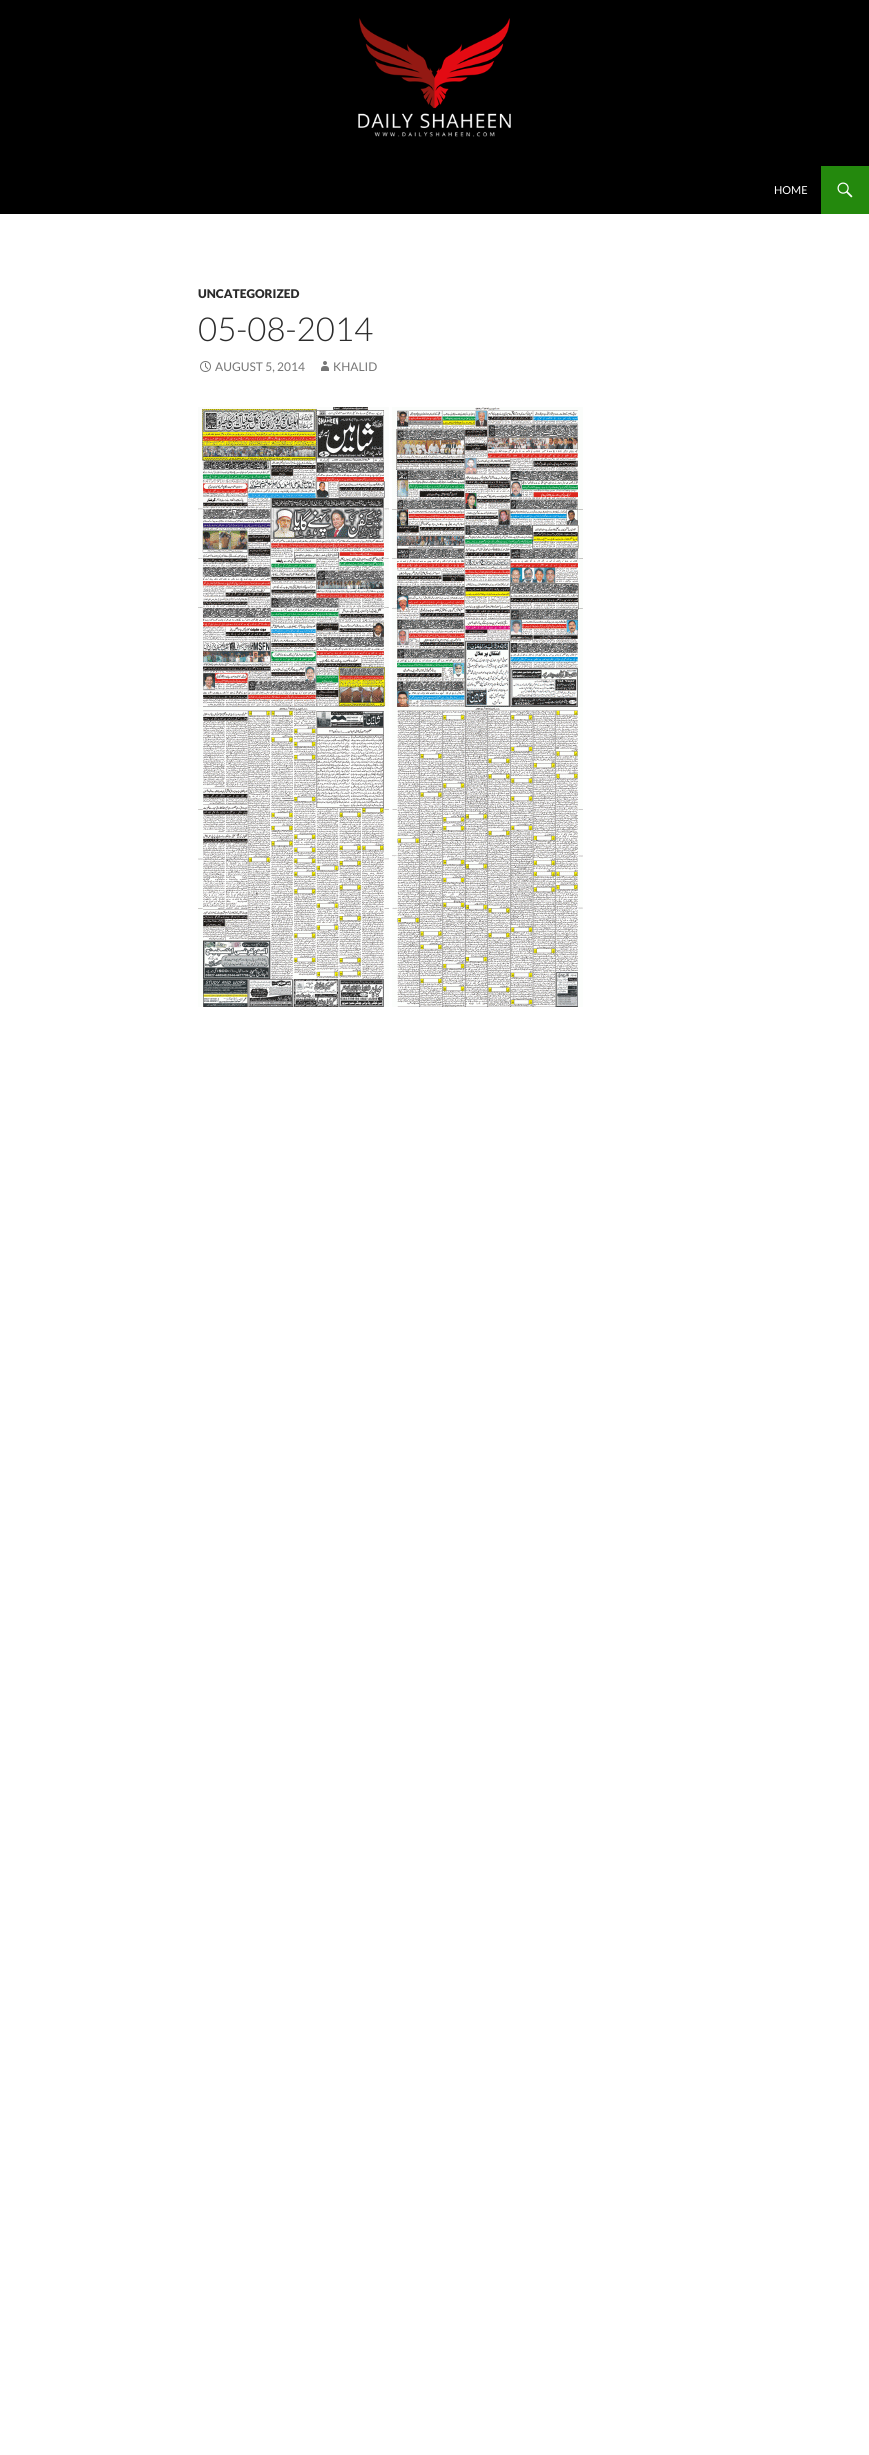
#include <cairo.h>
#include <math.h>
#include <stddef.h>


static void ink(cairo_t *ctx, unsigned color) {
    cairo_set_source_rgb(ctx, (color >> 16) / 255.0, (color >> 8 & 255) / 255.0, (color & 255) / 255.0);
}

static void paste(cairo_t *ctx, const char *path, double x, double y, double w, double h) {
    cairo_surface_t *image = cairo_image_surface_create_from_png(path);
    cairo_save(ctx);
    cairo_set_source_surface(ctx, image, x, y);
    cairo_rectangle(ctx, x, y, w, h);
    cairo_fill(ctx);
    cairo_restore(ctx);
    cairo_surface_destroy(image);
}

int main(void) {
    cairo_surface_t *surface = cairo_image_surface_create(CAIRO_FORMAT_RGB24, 869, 2455);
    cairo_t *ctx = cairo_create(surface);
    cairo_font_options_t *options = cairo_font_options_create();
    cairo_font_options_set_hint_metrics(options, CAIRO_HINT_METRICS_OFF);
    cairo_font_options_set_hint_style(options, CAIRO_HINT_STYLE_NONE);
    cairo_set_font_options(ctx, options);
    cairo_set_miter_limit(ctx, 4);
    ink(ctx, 0xFFFFFF);
    cairo_paint(ctx);
    paste(ctx, "media/1.png", 0, 0, 869, 166);
    ink(ctx, 0x000000);
    cairo_rectangle(ctx, 0, 166, 821, 48);
    cairo_fill(ctx);
    cairo_select_font_face(ctx, "Lato", CAIRO_FONT_SLANT_NORMAL, CAIRO_FONT_WEIGHT_NORMAL);
    cairo_set_font_size(ctx, 11);
    ink(ctx, 0xFFFFFF);
    cairo_move_to(ctx, 774, 194);
    cairo_show_text(ctx, "HOME");
    ink(ctx, 0x24890D);
    cairo_rectangle(ctx, 821, 166, 48, 48);
    cairo_fill(ctx);
    paste(ctx, "media/2.png", 837, 182, 16, 16);
    cairo_select_font_face(ctx, "Lato Black", CAIRO_FONT_SLANT_NORMAL, CAIRO_FONT_WEIGHT_NORMAL);
    cairo_set_font_size(ctx, 12);
    ink(ctx, 0x2B2B2B);
    cairo_move_to(ctx, 198, 298);
    cairo_show_text(ctx, "UNCATEGORIZED");
    cairo_select_font_face(ctx, "Lato Light", CAIRO_FONT_SLANT_NORMAL, CAIRO_FONT_WEIGHT_NORMAL);
    cairo_set_font_size(ctx, 33);
    cairo_move_to(ctx, 198, 341);
    cairo_show_text(ctx, "05-08-2014");
    paste(ctx, "media/3.png", 200, 361, 11, 11);
    cairo_select_font_face(ctx, "Lato", CAIRO_FONT_SLANT_NORMAL, CAIRO_FONT_WEIGHT_NORMAL);
    cairo_set_font_size(ctx, 12);
    ink(ctx, 0x767676);
    cairo_move_to(ctx, 215, 371);
    cairo_show_text(ctx, "AUGUST 5, 2014");
    paste(ctx, "media/4.png", 321, 361, 8, 10);
    cairo_move_to(ctx, 333, 371);
    cairo_show_text(ctx, "KHALID");
    paste(ctx, "media/5.png", 198, 407, 191, 300);
    paste(ctx, "media/6.png", 392, 407, 191, 300);
    paste(ctx, "media/7.png", 198, 707, 191, 300);
    paste(ctx, "media/8.png", 392, 707, 191, 300);
    cairo_surface_write_to_png(surface, "image.png");
    cairo_font_options_destroy(options);
    cairo_destroy(ctx);
    cairo_surface_destroy(surface);
    return 0;
}
